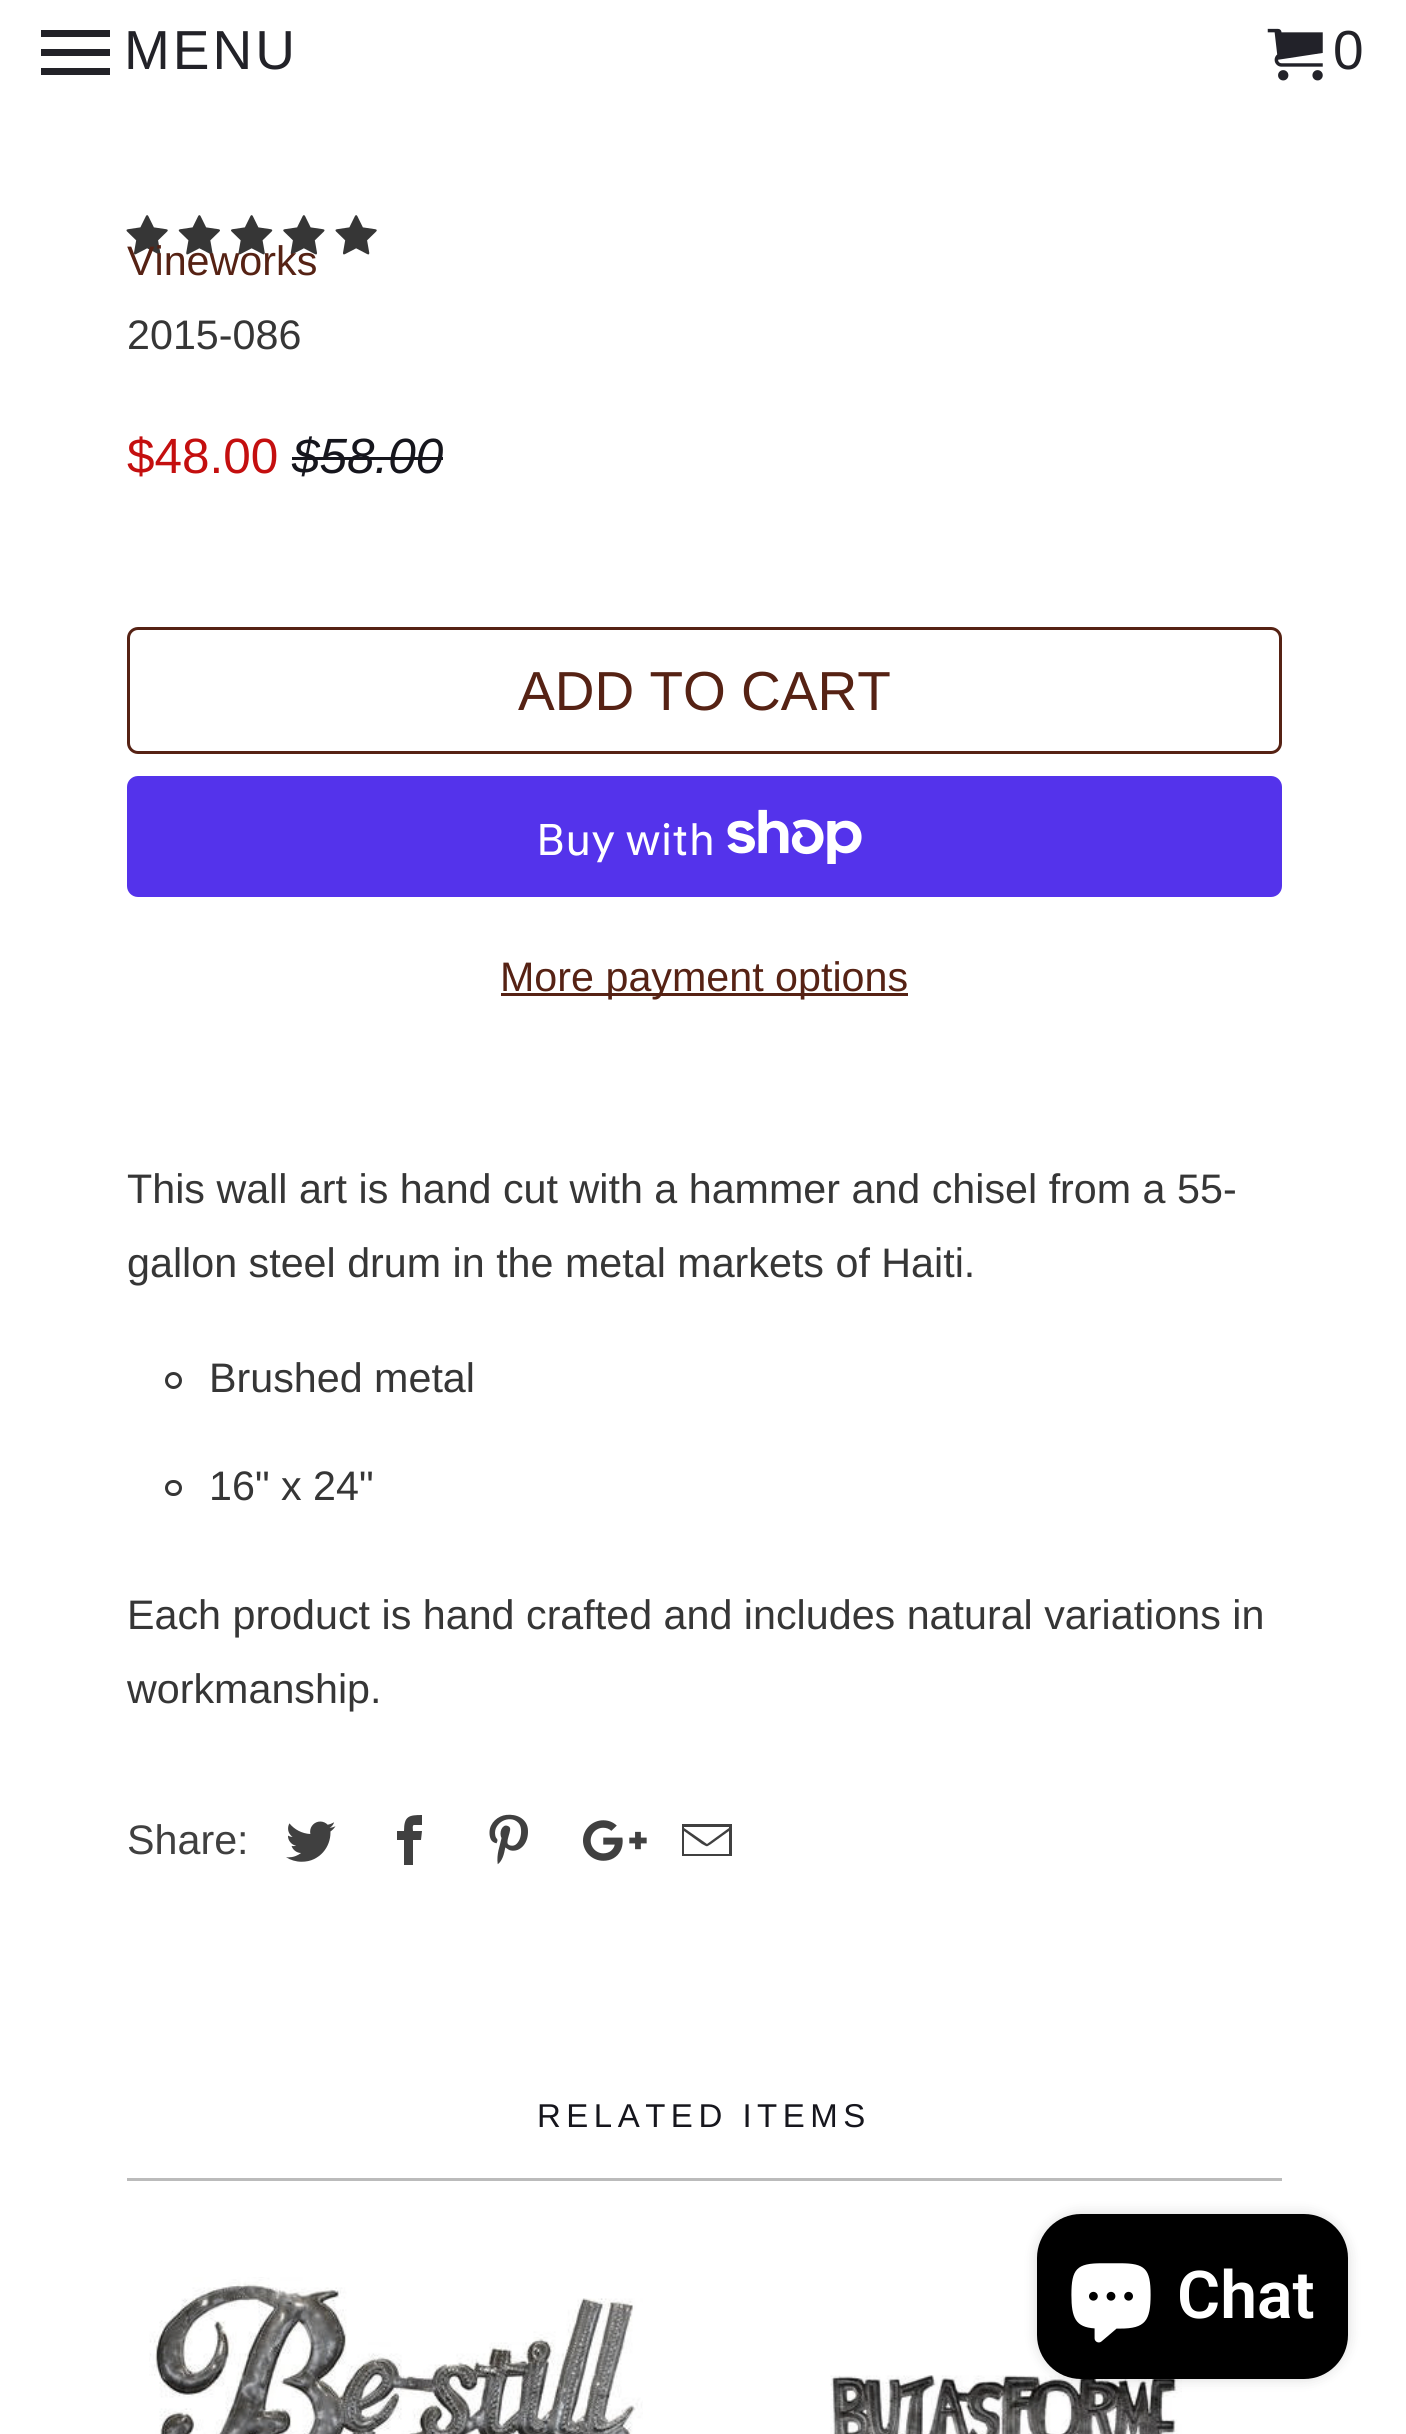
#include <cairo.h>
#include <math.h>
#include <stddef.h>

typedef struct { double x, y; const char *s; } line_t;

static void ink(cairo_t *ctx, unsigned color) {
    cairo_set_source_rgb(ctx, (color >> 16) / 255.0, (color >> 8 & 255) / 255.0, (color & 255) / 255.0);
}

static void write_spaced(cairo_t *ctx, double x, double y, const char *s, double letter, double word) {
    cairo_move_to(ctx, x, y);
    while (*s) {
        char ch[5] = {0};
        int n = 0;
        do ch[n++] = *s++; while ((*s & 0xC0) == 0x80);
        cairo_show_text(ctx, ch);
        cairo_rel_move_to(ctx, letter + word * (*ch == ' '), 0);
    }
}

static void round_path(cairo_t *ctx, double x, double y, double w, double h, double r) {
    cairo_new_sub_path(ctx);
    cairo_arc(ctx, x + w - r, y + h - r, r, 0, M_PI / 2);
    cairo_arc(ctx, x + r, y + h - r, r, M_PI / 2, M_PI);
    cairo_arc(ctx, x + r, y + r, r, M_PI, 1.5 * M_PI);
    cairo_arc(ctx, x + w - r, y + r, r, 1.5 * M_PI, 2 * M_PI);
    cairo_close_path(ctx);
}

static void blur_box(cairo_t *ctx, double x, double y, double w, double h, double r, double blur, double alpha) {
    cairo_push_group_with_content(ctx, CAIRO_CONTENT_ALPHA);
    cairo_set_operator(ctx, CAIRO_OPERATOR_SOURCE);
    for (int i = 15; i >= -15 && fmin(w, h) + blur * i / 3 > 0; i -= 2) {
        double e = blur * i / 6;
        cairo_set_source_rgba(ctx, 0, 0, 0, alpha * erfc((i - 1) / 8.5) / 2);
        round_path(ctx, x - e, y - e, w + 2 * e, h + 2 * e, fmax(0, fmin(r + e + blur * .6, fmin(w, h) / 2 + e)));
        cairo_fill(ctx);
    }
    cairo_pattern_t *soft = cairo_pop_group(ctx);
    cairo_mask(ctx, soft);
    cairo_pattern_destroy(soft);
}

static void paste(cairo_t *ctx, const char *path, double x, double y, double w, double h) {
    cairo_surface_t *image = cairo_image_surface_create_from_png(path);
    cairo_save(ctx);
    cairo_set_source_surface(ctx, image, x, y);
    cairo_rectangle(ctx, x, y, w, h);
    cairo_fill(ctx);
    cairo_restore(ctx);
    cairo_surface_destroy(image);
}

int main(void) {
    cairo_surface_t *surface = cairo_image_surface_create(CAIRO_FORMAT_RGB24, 1406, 2434);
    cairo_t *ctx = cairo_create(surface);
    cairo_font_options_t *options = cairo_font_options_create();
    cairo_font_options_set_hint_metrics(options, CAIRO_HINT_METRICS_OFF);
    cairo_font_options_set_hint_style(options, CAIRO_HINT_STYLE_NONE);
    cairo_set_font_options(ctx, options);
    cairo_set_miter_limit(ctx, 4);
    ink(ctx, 0xFFFFFF);
    cairo_paint(ctx);
    ink(ctx, 0x222228);
    cairo_new_path(ctx);
    cairo_move_to(ctx, 41, 75);
    cairo_line_to(ctx, 110, 75);
    cairo_line_to(ctx, 110, 68);
    cairo_line_to(ctx, 41, 68);
    cairo_close_path(ctx);
    cairo_move_to(ctx, 41, 56);
    cairo_line_to(ctx, 110, 56);
    cairo_line_to(ctx, 110, 49);
    cairo_line_to(ctx, 41, 49);
    cairo_close_path(ctx);
    cairo_move_to(ctx, 41, 30);
    cairo_line_to(ctx, 41, 37);
    cairo_line_to(ctx, 110, 37);
    cairo_line_to(ctx, 110, 30);
    cairo_close_path(ctx);
    cairo_fill(ctx);
    cairo_select_font_face(ctx, "Liberation Sans", CAIRO_FONT_SLANT_NORMAL, CAIRO_FONT_WEIGHT_NORMAL);
    cairo_set_font_size(ctx, 55);
    write_spaced(ctx, 124, 69, "MENU", 3, 0);
    paste(ctx, "media/1.png", 1267, 28, 56, 53);
    write_spaced(ctx, 1333, 69, "0", 3, 0);
    paste(ctx, "media/2.png", 126, 215, 42, 40);
    paste(ctx, "media/3.png", 178, 215, 42, 40);
    paste(ctx, "media/4.png", 231, 215, 42, 40);
    paste(ctx, "media/5.png", 283, 215, 42, 40);
    paste(ctx, "media/2.png", 335, 215, 42, 40);
    cairo_set_font_size(ctx, 41.25);
    ink(ctx, 0x562214);
    cairo_move_to(ctx, 127, 275);
    cairo_show_text(ctx, "Vineworks");
    ink(ctx, 0x363636);
    cairo_move_to(ctx, 127, 349);
    cairo_show_text(ctx, "2015-086");
    cairo_set_font_size(ctx, 49.5);
    ink(ctx, 0xC40F0F);
    cairo_move_to(ctx, 127, 473);
    cairo_show_text(ctx, "$48.00");
    cairo_select_font_face(ctx, "Liberation Sans", CAIRO_FONT_SLANT_ITALIC, CAIRO_FONT_WEIGHT_NORMAL);
    ink(ctx, 0x16161D);
    cairo_move_to(ctx, 292, 473);
    cairo_show_text(ctx, "$58.00");
    cairo_rectangle(ctx, 292, 457, 151, 3);
    cairo_fill(ctx);
    round_path(ctx, 128.5, 628.5, 1152, 124, 9.5);
    ink(ctx, 0x562214);
    cairo_set_line_width(ctx, 3);
    cairo_stroke(ctx);
    cairo_select_font_face(ctx, "Liberation Sans", CAIRO_FONT_SLANT_NORMAL, CAIRO_FONT_WEIGHT_NORMAL);
    cairo_set_font_size(ctx, 55);
    cairo_move_to(ctx, 518, 710);
    cairo_show_text(ctx, "ADD TO CART");
    ink(ctx, 0x5433EB);
    round_path(ctx, 127, 776, 1155, 121, 11);
    cairo_fill(ctx);
    cairo_select_font_face(ctx, "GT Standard", CAIRO_FONT_SLANT_NORMAL, CAIRO_FONT_WEIGHT_NORMAL);
    cairo_set_font_size(ctx, 44);
    ink(ctx, 0xFFFFFF);
    cairo_move_to(ctx, 536, 855);
    cairo_show_text(ctx, "Buy with");
    paste(ctx, "media/6.png", 727, 809, 135, 55);
    ink(ctx, 0x562214);
    cairo_rectangle(ctx, 501, 993, 407, 3);
    cairo_fill(ctx);
    cairo_select_font_face(ctx, "Liberation Sans", CAIRO_FONT_SLANT_NORMAL, CAIRO_FONT_WEIGHT_NORMAL);
    cairo_set_font_size(ctx, 41.25);
    cairo_move_to(ctx, 500, 991);
    cairo_show_text(ctx, "More payment options");
    ink(ctx, 0x363636);
    cairo_move_to(ctx, 127, 1203);
    cairo_show_text(ctx, "This wall art is hand cut with a hammer and chisel from a 55-");
    cairo_move_to(ctx, 127, 1277);
    cairo_show_text(ctx, "gallon steel drum in the metal markets of Haiti.");
    cairo_new_path(ctx);
    cairo_arc(ctx, 173.5, 1380.5, 7, 0, 2 * M_PI);
    cairo_stroke(ctx);
    cairo_move_to(ctx, 209, 1392);
    cairo_show_text(ctx, "Brushed metal");
    round_path(ctx, 166.5, 1481.5, 14, 13, 6.5);
    cairo_stroke(ctx);
    {
        static const line_t items[] = {
            {209, 1500, "16\" x 24\""},
            {127, 1629, "Each product is hand crafted and includes natural variations in"},
            {127, 1703, "workmanship."},
        };
        for (size_t i = 0; i < sizeof items / sizeof *items; i++) {
            cairo_move_to(ctx, items[i].x, items[i].y);
            cairo_show_text(ctx, items[i].s);
        }
    }
    ink(ctx, 0x404040);
    cairo_move_to(ctx, 127, 1854);
    cairo_show_text(ctx, "Share:");
    paste(ctx, "media/7.png", 286, 1821, 50, 41);
    cairo_new_path(ctx);
    cairo_move_to(ctx, 414, 1825);
    cairo_line_to(ctx, 422, 1825);
    cairo_line_to(ctx, 422, 1815);
    cairo_curve_to(ctx, 409, 1815, 404, 1816, 404, 1831);
    cairo_line_to(ctx, 397, 1831);
    cairo_line_to(ctx, 397, 1840);
    cairo_line_to(ctx, 404, 1840);
    cairo_line_to(ctx, 404, 1865);
    cairo_line_to(ctx, 413, 1865);
    cairo_line_to(ctx, 413, 1840);
    cairo_line_to(ctx, 421, 1840);
    cairo_line_to(ctx, 422, 1831);
    cairo_line_to(ctx, 413, 1831);
    cairo_curve_to(ctx, 413, 1830, 412, 1825, 414, 1825);
    cairo_close_path(ctx);
    cairo_fill(ctx);
    paste(ctx, "media/8.png", 489, 1814, 39, 51);
    paste(ctx, "media/9.png", 583, 1820, 64, 41);
    cairo_new_path(ctx);
    cairo_move_to(ctx, 682, 1824);
    cairo_line_to(ctx, 682, 1856);
    cairo_line_to(ctx, 732, 1856);
    cairo_line_to(ctx, 732, 1824);
    cairo_close_path(ctx);
    cairo_move_to(ctx, 729, 1827);
    cairo_line_to(ctx, 729, 1828);
    cairo_line_to(ctx, 707, 1844);
    cairo_line_to(ctx, 684, 1828);
    cairo_line_to(ctx, 684, 1827);
    cairo_close_path(ctx);
    cairo_move_to(ctx, 684, 1854);
    cairo_line_to(ctx, 684, 1831);
    cairo_line_to(ctx, 702, 1844);
    cairo_curve_to(ctx, 708, 1847, 706, 1847, 711, 1844);
    cairo_line_to(ctx, 729, 1831);
    cairo_line_to(ctx, 729, 1854);
    cairo_close_path(ctx);
    cairo_fill(ctx);
    ink(ctx, 0xBBBBBB);
    cairo_rectangle(ctx, 127, 2178, 1155, 3);
    cairo_fill(ctx);
    cairo_set_font_size(ctx, 33);
    ink(ctx, 0x16161D);
    write_spaced(ctx, 537, 2127, "RELATED ITEMS", 5.5, 0);
    paste(ctx, "media/10.png", 149, 2277, 494, 157);
    paste(ctx, "media/11.png", 830, 2375, 352, 59);
    ink(ctx, 0x000000);
    blur_box(ctx, 1037, 2214, 311, 165, 44, 7, 0.15);
    ink(ctx, 0x000000);
    round_path(ctx, 1037, 2214, 311, 165, 44);
    cairo_fill(ctx);
    paste(ctx, "media/12.png", 1071, 2263, 80, 80);
    cairo_select_font_face(ctx, "Roboto SemiBold", CAIRO_FONT_SLANT_NORMAL, CAIRO_FONT_WEIGHT_NORMAL);
    cairo_set_font_size(ctx, 66);
    ink(ctx, 0xFFFFFF);
    cairo_move_to(ctx, 1177, 2318);
    cairo_show_text(ctx, "Chat");
    cairo_surface_write_to_png(surface, "image.png");
    cairo_font_options_destroy(options);
    cairo_destroy(ctx);
    cairo_surface_destroy(surface);
    return 0;
}
